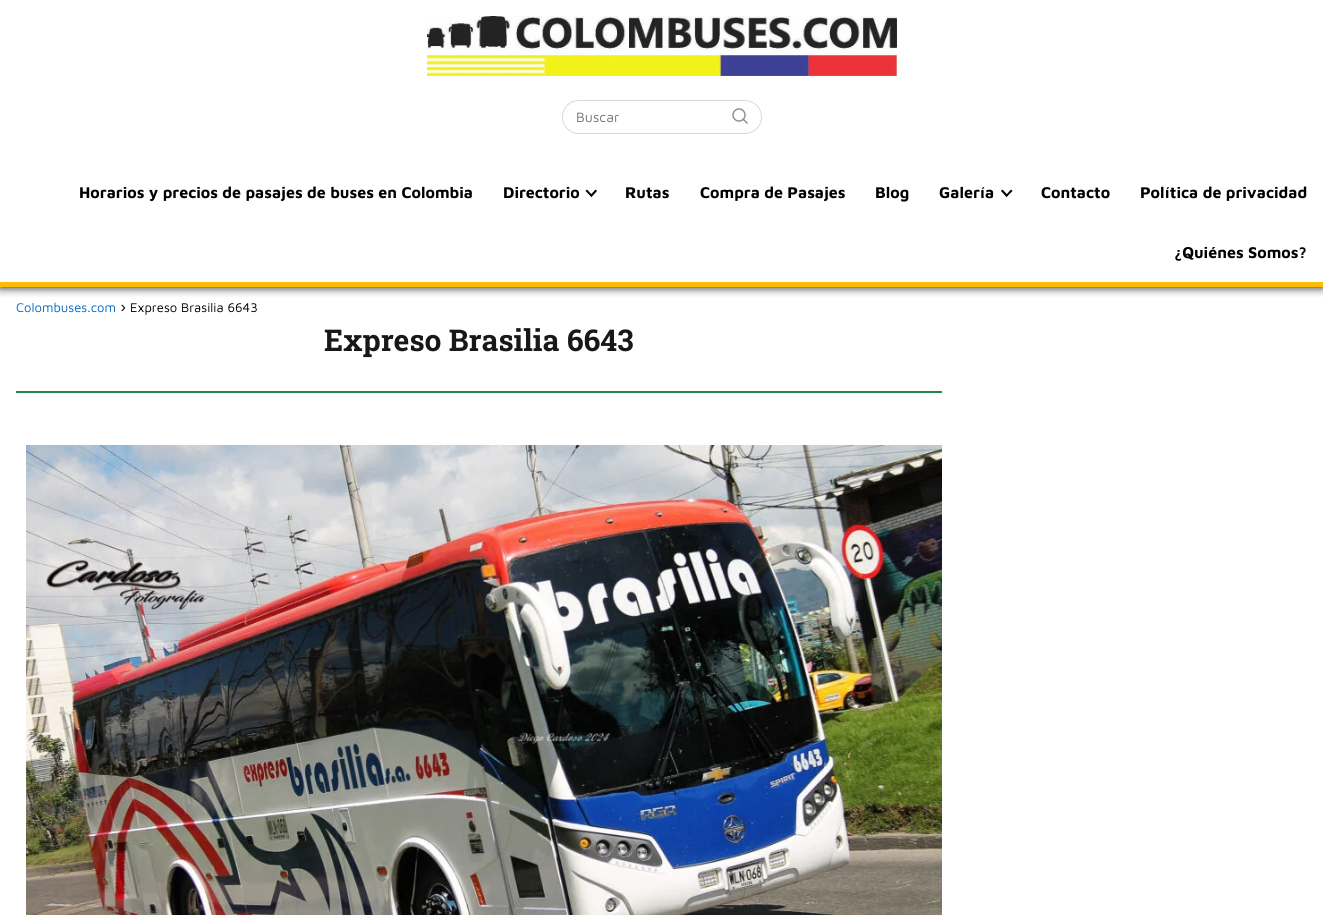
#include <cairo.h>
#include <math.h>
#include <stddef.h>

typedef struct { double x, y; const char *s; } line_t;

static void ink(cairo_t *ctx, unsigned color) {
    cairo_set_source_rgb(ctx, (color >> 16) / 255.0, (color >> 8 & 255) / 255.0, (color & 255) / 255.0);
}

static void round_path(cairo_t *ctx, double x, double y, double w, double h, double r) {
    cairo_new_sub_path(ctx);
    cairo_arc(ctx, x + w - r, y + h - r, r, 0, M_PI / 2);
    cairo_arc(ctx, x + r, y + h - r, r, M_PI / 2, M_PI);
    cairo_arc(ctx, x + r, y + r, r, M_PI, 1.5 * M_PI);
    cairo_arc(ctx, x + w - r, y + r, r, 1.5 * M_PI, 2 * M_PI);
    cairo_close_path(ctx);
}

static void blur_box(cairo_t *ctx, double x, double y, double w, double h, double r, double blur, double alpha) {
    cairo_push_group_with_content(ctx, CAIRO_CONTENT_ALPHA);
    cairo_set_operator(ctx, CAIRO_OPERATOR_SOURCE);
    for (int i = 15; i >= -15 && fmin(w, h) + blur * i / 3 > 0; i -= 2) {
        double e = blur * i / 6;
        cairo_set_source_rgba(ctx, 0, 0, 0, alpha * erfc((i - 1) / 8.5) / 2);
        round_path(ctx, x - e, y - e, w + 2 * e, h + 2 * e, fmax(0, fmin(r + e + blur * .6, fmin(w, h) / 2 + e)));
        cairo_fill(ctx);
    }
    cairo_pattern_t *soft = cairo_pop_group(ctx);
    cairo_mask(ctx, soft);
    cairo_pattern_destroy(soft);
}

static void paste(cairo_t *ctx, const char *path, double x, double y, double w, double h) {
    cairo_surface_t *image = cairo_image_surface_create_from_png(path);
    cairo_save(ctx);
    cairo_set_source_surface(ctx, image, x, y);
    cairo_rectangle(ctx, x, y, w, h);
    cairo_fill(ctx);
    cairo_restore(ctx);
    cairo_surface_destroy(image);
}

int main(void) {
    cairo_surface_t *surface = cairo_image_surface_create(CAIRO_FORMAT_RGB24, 1323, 915);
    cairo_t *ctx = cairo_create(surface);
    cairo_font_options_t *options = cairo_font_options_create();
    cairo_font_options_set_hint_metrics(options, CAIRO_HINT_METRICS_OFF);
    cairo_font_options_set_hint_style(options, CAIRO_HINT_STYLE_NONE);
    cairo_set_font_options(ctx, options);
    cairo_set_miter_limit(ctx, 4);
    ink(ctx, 0xFFFFFF);
    cairo_paint(ctx);
    cairo_save(ctx);
    cairo_rectangle(ctx, 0, 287, 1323, 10);
    cairo_clip(ctx);
    ink(ctx, 0x000000);
    blur_box(ctx, 0, 162, 1323, 125, 0, 5, 1);
    cairo_restore(ctx);
    ink(ctx, 0xFFFFFF);
    cairo_rectangle(ctx, 0, 150, 1323, 12);
    cairo_fill(ctx);
    paste(ctx, "media/1.png", 427, 16, 470, 60);
    round_path(ctx, 562.5, 100.5, 199, 33, 16.5);
    ink(ctx, 0xD9D9D9);
    cairo_set_line_width(ctx, 1);
    cairo_stroke(ctx);
    cairo_select_font_face(ctx, "Maven Pro", CAIRO_FONT_SLANT_NORMAL, CAIRO_FONT_WEIGHT_NORMAL);
    cairo_set_font_size(ctx, 14);
    ink(ctx, 0x757575);
    cairo_move_to(ctx, 576, 122);
    cairo_show_text(ctx, "Buscar");
    cairo_new_path(ctx);
    cairo_arc(ctx, 739, 115, 6, 0, 2 * M_PI);
    ink(ctx, 0x919191);
    cairo_set_line_width(ctx, 1.5);
    cairo_stroke(ctx);
    cairo_new_path(ctx);
    cairo_move_to(ctx, 747, 123);
    cairo_line_to(ctx, 743.5, 119.5);
    cairo_set_line_cap(ctx, CAIRO_LINE_CAP_ROUND);
    cairo_set_line_join(ctx, CAIRO_LINE_JOIN_ROUND);
    cairo_stroke(ctx);
    ink(ctx, 0xFFBC00);
    cairo_rectangle(ctx, 0, 282, 1323, 5);
    cairo_fill(ctx);
    cairo_select_font_face(ctx, "Maven Pro", CAIRO_FONT_SLANT_NORMAL, CAIRO_FONT_WEIGHT_BOLD);
    cairo_set_font_size(ctx, 16);
    ink(ctx, 0x000000);
    cairo_move_to(ctx, 79, 198);
    cairo_show_text(ctx, "Horarios y precios de pasajes de buses en Colombia");
    cairo_move_to(ctx, 503, 198);
    cairo_show_text(ctx, "Directorio");
    cairo_new_path(ctx);
    cairo_move_to(ctx, 595.5, 189.5);
    cairo_line_to(ctx, 597, 191);
    cairo_line_to(ctx, 591.5, 197);
    cairo_line_to(ctx, 590, 195.5);
    cairo_close_path(ctx);
    cairo_fill(ctx);
    cairo_new_path(ctx);
    cairo_move_to(ctx, 587, 189.5);
    cairo_line_to(ctx, 592.5, 195.5);
    cairo_line_to(ctx, 591.5, 197);
    cairo_line_to(ctx, 585.5, 191);
    cairo_close_path(ctx);
    cairo_fill(ctx);
    {
        static const line_t items[] = {
            {625, 198, "Rutas"},
            {700, 198, "Compra de Pasajes"},
            {875, 198, "Blog"},
            {939, 198, "Galería"},
        };
        for (size_t i = 0; i < sizeof items / sizeof *items; i++) {
            cairo_move_to(ctx, items[i].x, items[i].y);
            cairo_show_text(ctx, items[i].s);
        }
    }
    cairo_new_path(ctx);
    cairo_move_to(ctx, 1011, 189.5);
    cairo_line_to(ctx, 1012.5, 191);
    cairo_line_to(ctx, 1006.5, 197);
    cairo_line_to(ctx, 1005.5, 195.5);
    cairo_close_path(ctx);
    cairo_fill(ctx);
    cairo_new_path(ctx);
    cairo_move_to(ctx, 1002.5, 189.5);
    cairo_line_to(ctx, 1008, 195.5);
    cairo_line_to(ctx, 1006.5, 197);
    cairo_line_to(ctx, 1001, 191);
    cairo_close_path(ctx);
    cairo_fill(ctx);
    {
        static const line_t items[] = {
            {1041, 198, "Contacto"},
            {1140, 198, "Política de privacidad"},
            {1174, 258, "¿Quiénes Somos?"},
        };
        for (size_t i = 0; i < sizeof items / sizeof *items; i++) {
            cairo_move_to(ctx, items[i].x, items[i].y);
            cairo_show_text(ctx, items[i].s);
        }
    }
    cairo_select_font_face(ctx, "Maven Pro", CAIRO_FONT_SLANT_NORMAL, CAIRO_FONT_WEIGHT_NORMAL);
    cairo_set_font_size(ctx, 13);
    ink(ctx, 0x0066BF);
    cairo_move_to(ctx, 16, 312);
    cairo_show_text(ctx, "Colombuses.com");
    cairo_set_font_size(ctx, 16);
    ink(ctx, 0x000000);
    cairo_move_to(ctx, 120, 312);
    cairo_show_text(ctx, "›");
    cairo_set_font_size(ctx, 13);
    cairo_move_to(ctx, 130, 312);
    cairo_show_text(ctx, "Expreso Brasilia 6643");
    cairo_select_font_face(ctx, "Roboto Slab", CAIRO_FONT_SLANT_NORMAL, CAIRO_FONT_WEIGHT_BOLD);
    cairo_set_font_size(ctx, 30);
    ink(ctx, 0x181818);
    cairo_move_to(ctx, 324, 351);
    cairo_show_text(ctx, "Expreso Brasilia 6643");
    ink(ctx, 0x26864D);
    cairo_rectangle(ctx, 16, 391, 926, 2);
    cairo_fill(ctx);
    paste(ctx, "media/2.png", 26, 445, 916, 470);
    cairo_surface_write_to_png(surface, "image.png");
    cairo_font_options_destroy(options);
    cairo_destroy(ctx);
    cairo_surface_destroy(surface);
    return 0;
}
